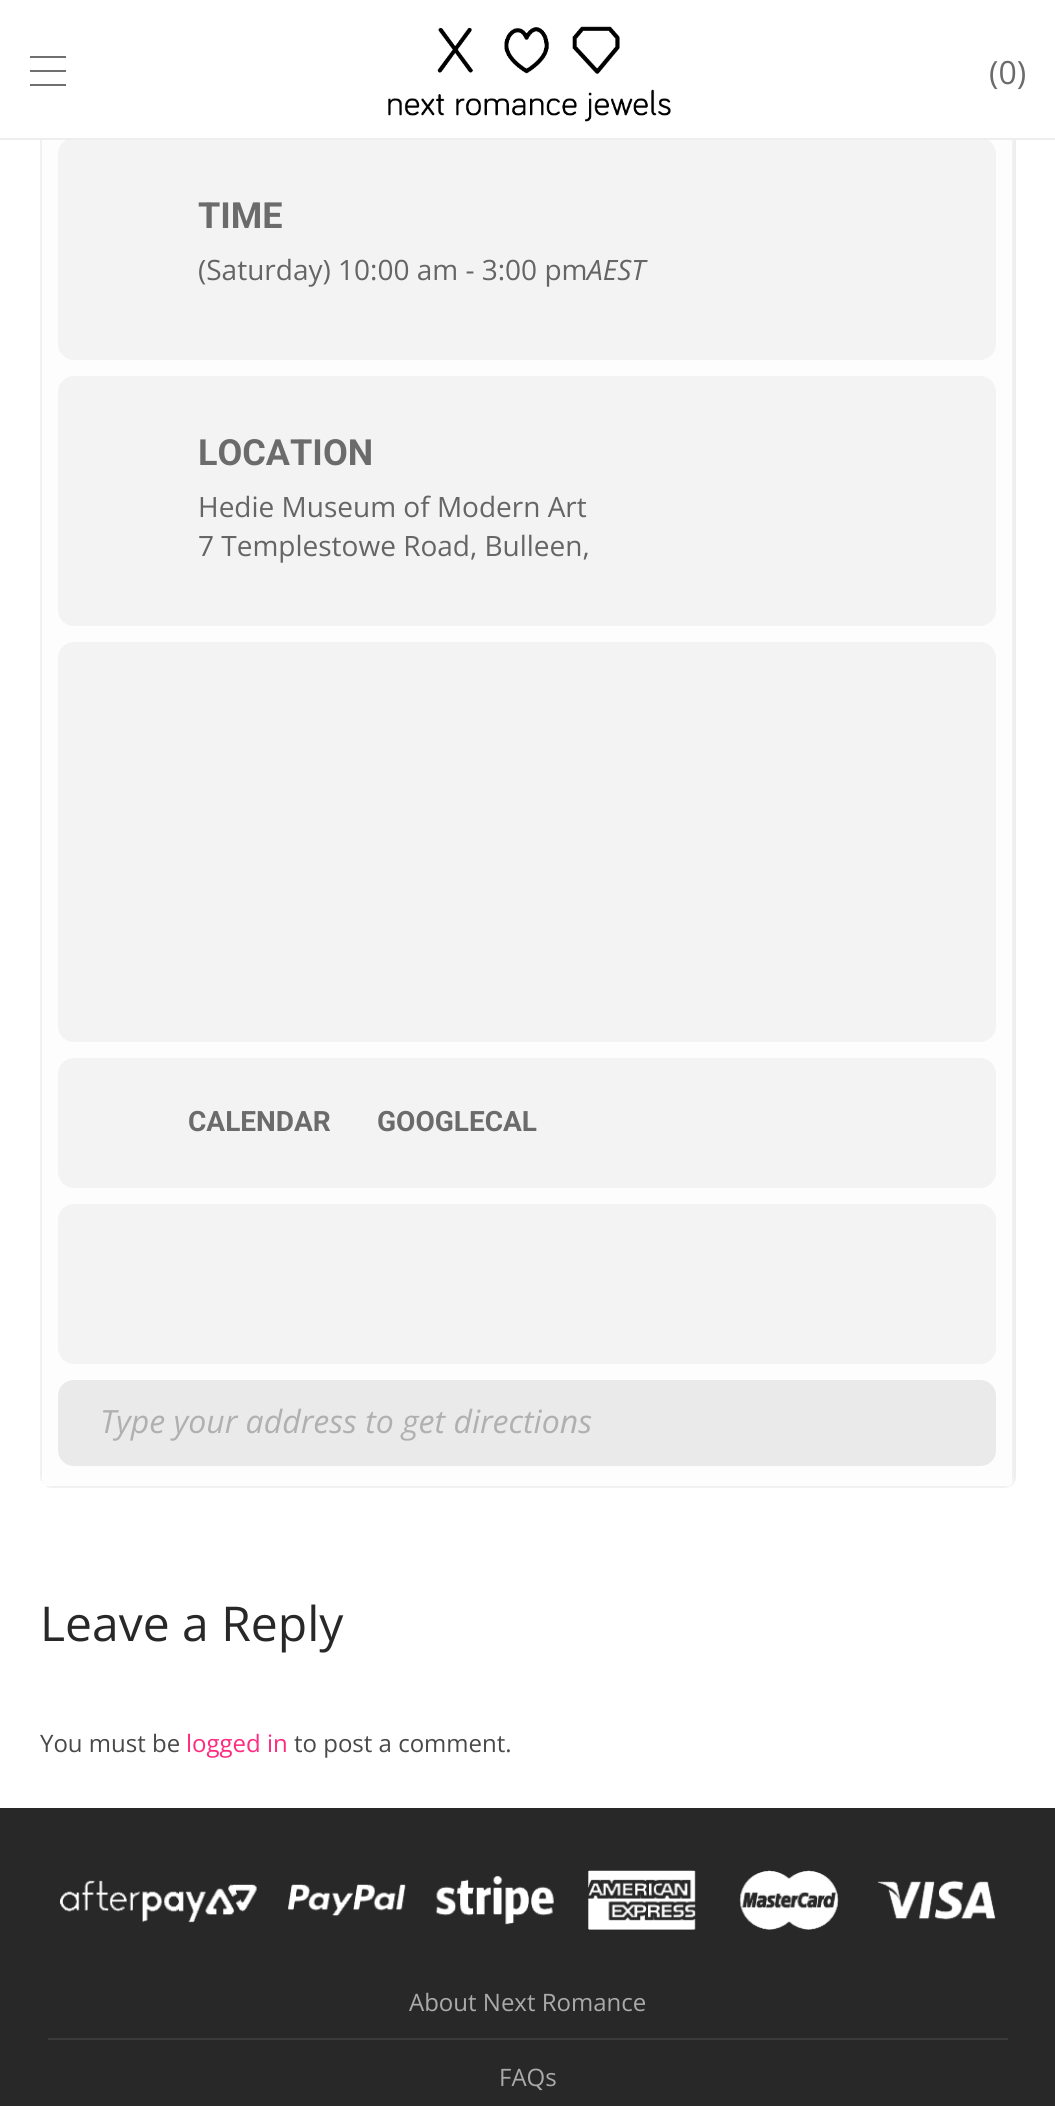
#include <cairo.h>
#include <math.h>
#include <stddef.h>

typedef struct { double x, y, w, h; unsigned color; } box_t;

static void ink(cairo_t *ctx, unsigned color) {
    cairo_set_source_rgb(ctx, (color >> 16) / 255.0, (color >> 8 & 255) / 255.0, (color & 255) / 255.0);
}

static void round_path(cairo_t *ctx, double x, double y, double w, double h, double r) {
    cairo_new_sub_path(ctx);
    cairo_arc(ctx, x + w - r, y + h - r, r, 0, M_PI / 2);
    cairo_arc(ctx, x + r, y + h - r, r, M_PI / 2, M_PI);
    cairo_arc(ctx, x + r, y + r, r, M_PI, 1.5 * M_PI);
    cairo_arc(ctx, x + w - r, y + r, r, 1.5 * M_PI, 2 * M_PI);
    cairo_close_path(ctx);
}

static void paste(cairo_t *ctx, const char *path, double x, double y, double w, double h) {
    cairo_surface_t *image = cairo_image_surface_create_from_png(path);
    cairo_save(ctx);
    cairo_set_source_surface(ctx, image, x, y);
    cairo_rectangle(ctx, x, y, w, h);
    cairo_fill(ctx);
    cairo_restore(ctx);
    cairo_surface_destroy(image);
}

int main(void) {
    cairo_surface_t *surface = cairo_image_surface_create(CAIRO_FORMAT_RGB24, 1055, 2106);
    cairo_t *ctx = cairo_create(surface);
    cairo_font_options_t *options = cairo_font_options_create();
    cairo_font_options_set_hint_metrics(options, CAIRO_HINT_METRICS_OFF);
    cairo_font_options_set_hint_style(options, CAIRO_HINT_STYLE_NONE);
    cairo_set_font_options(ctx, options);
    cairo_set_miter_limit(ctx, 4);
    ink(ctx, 0xFFFFFF);
    cairo_paint(ctx);
    ink(ctx, 0xEFEEEE);
    cairo_set_fill_rule(ctx, CAIRO_FILL_RULE_EVEN_ODD);
    cairo_new_path(ctx);
    cairo_move_to(ctx, 52, -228);
    cairo_line_to(ctx, 1004, -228);
    cairo_curve_to(ctx, 1011, -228, 1016, -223, 1016, -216);
    cairo_line_to(ctx, 1016, 1476);
    cairo_curve_to(ctx, 1016, 1483, 1011, 1488, 1004, 1488);
    cairo_line_to(ctx, 52, 1488);
    cairo_curve_to(ctx, 45, 1488, 40, 1483, 40, 1476);
    cairo_line_to(ctx, 40, -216);
    cairo_curve_to(ctx, 40, -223, 45, -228, 52, -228);
    cairo_close_path(ctx);
    cairo_move_to(ctx, 52, -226);
    cairo_line_to(ctx, 1004, -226);
    cairo_curve_to(ctx, 1010, -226, 1014, -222, 1014, -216);
    cairo_line_to(ctx, 1014, 1476);
    cairo_curve_to(ctx, 1014, 1483, 1010, 1488, 1004, 1488);
    cairo_line_to(ctx, 52, 1488);
    cairo_curve_to(ctx, 45, 1488, 40, 1483, 40, 1476);
    cairo_line_to(ctx, 40, -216);
    cairo_curve_to(ctx, 40, -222, 45, -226, 52, -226);
    cairo_close_path(ctx);
    cairo_fill(ctx);
    ink(ctx, 0xFDFDFD);
    cairo_set_fill_rule(ctx, CAIRO_FILL_RULE_WINDING);
    cairo_new_path(ctx);
    cairo_move_to(ctx, 40, 122);
    cairo_line_to(ctx, 40, 1476);
    cairo_curve_to(ctx, 40, 1483, 45, 1488, 52, 1488);
    cairo_line_to(ctx, 1004, 1488);
    cairo_curve_to(ctx, 1010, 1488, 1014, 1483, 1014, 1476);
    cairo_line_to(ctx, 1014, 122);
    cairo_close_path(ctx);
    cairo_fill(ctx);
    ink(ctx, 0xF1F1F1);
    cairo_new_path(ctx);
    cairo_move_to(ctx, 1012, 122);
    cairo_line_to(ctx, 1012, 1483);
    cairo_curve_to(ctx, 1013, 1481, 1014, 1479, 1014, 1476);
    cairo_line_to(ctx, 1014, 122);
    cairo_close_path(ctx);
    cairo_fill(ctx);
    cairo_new_path(ctx);
    cairo_move_to(ctx, 40, 122);
    cairo_line_to(ctx, 40, 1476);
    cairo_curve_to(ctx, 40, 1478, 41, 1481, 42, 1483);
    cairo_line_to(ctx, 42, 122);
    cairo_close_path(ctx);
    cairo_fill(ctx);
    ink(ctx, 0xFFFFFF);
    cairo_rectangle(ctx, 40, 0, 976, 138);
    cairo_fill(ctx);
    ink(ctx, 0xF3F3F3);
    round_path(ctx, 58, 138, 938, 222, 16);
    cairo_fill(ctx);
    {
        static const box_t items[] = {
            {0, 138, 1055, 2, 0xEEEEEE},
            {30, 56, 36, 2, 0x707070},
            {30, 70, 36, 2, 0x707070},
            {30, 84, 36, 2, 0x707070},
        };
        for (size_t i = 0; i < sizeof items / sizeof *items; i++) {
            ink(ctx, items[i].color);
            cairo_rectangle(ctx, items[i].x, items[i].y, items[i].w, items[i].h);
            cairo_fill(ctx);
        }
    }
    paste(ctx, "media/1.png", 388, 26, 283, 96);
    cairo_select_font_face(ctx, "Open Sans", CAIRO_FONT_SLANT_NORMAL, CAIRO_FONT_WEIGHT_NORMAL);
    cairo_set_font_size(ctx, 32);
    ink(ctx, 0x6B6B6B);
    cairo_move_to(ctx, 989, 84);
    cairo_show_text(ctx, "(0)");
    ink(ctx, 0xF1F1F1);
    cairo_new_path(ctx);
    cairo_move_to(ctx, 52, 1488);
    cairo_line_to(ctx, 1004, 1488);
    cairo_curve_to(ctx, 1006, 1488, 1008, 1487, 1010, 1486);
    cairo_line_to(ctx, 45, 1486);
    cairo_curve_to(ctx, 47, 1487, 50, 1488, 52, 1488);
    cairo_close_path(ctx);
    cairo_fill(ctx);
    cairo_select_font_face(ctx, "Roboto", CAIRO_FONT_SLANT_NORMAL, CAIRO_FONT_WEIGHT_BOLD);
    cairo_set_font_size(ctx, 36);
    ink(ctx, 0x6B6B6B);
    cairo_move_to(ctx, 198, 228);
    cairo_show_text(ctx, "TIME");
    cairo_select_font_face(ctx, "Open Sans", CAIRO_FONT_SLANT_NORMAL, CAIRO_FONT_WEIGHT_NORMAL);
    cairo_set_font_size(ctx, 28);
    ink(ctx, 0x656565);
    cairo_move_to(ctx, 198, 280);
    cairo_show_text(ctx, "(Saturday) 10:00 am - 3:00 pm");
    cairo_select_font_face(ctx, "Open Sans", CAIRO_FONT_SLANT_ITALIC, CAIRO_FONT_WEIGHT_NORMAL);
    cairo_move_to(ctx, 587, 280);
    cairo_show_text(ctx, "AEST");
    ink(ctx, 0xF3F3F3);
    round_path(ctx, 58, 376, 938, 250, 16);
    cairo_fill(ctx);
    cairo_select_font_face(ctx, "Roboto", CAIRO_FONT_SLANT_NORMAL, CAIRO_FONT_WEIGHT_BOLD);
    cairo_set_font_size(ctx, 36);
    ink(ctx, 0x6B6B6B);
    cairo_move_to(ctx, 198, 465);
    cairo_show_text(ctx, "LOCATION");
    cairo_select_font_face(ctx, "Open Sans", CAIRO_FONT_SLANT_NORMAL, CAIRO_FONT_WEIGHT_NORMAL);
    cairo_set_font_size(ctx, 28);
    ink(ctx, 0x656565);
    cairo_move_to(ctx, 198, 517);
    cairo_show_text(ctx, "Hedie Museum of Modern Art");
    cairo_move_to(ctx, 198, 556);
    cairo_show_text(ctx, "7 Templestowe Road, Bulleen,");
    ink(ctx, 0xF3F3F3);
    round_path(ctx, 58, 642, 938, 400, 16);
    cairo_fill(ctx);
    round_path(ctx, 58, 1058, 938, 130, 16);
    cairo_fill(ctx);
    cairo_select_font_face(ctx, "Roboto", CAIRO_FONT_SLANT_NORMAL, CAIRO_FONT_WEIGHT_BOLD);
    ink(ctx, 0x6B6B6B);
    cairo_move_to(ctx, 188, 1131);
    cairo_show_text(ctx, "CALENDAR");
    cairo_move_to(ctx, 377, 1131);
    cairo_show_text(ctx, "GOOGLECAL");
    ink(ctx, 0xF3F3F3);
    round_path(ctx, 58, 1204, 938, 160, 16);
    cairo_fill(ctx);
    ink(ctx, 0xEAEAEA);
    cairo_new_path(ctx);
    cairo_move_to(ctx, 74, 1380);
    cairo_line_to(ctx, 980, 1380);
    cairo_curve_to(ctx, 989, 1380, 996, 1387, 996, 1396);
    cairo_line_to(ctx, 996, 1450);
    cairo_curve_to(ctx, 996, 1459, 989, 1466, 980, 1466);
    cairo_line_to(ctx, 74, 1466);
    cairo_curve_to(ctx, 65, 1466, 58, 1459, 58, 1450);
    cairo_line_to(ctx, 58, 1396);
    cairo_curve_to(ctx, 58, 1387, 65, 1380, 74, 1380);
    cairo_close_path(ctx);
    cairo_fill(ctx);
    cairo_select_font_face(ctx, "Open Sans", CAIRO_FONT_SLANT_ITALIC, CAIRO_FONT_WEIGHT_NORMAL);
    cairo_set_font_size(ctx, 32);
    ink(ctx, 0xB0B0B0);
    cairo_move_to(ctx, 100, 1433);
    cairo_show_text(ctx, "Type your address to get directions");
    cairo_select_font_face(ctx, "Open Sans", CAIRO_FONT_SLANT_NORMAL, CAIRO_FONT_WEIGHT_NORMAL);
    cairo_set_font_size(ctx, 48);
    ink(ctx, 0x282828);
    cairo_move_to(ctx, 40, 1641);
    cairo_show_text(ctx, "Leave a Reply");
    cairo_set_font_size(ctx, 24);
    ink(ctx, 0x494949);
    cairo_move_to(ctx, 40, 1752);
    cairo_show_text(ctx, "You must be");
    ink(ctx, 0xFF2B80);
    cairo_move_to(ctx, 186, 1752);
    cairo_show_text(ctx, "logged in");
    ink(ctx, 0x494949);
    cairo_move_to(ctx, 294, 1752);
    cairo_show_text(ctx, "to post a comment.");
    ink(ctx, 0x282828);
    cairo_rectangle(ctx, 0, 1808, 1055, 298);
    cairo_fill(ctx);
    paste(ctx, "media/2.png", 60, 1870, 936, 60);
    ink(ctx, 0x3A3A3A);
    cairo_rectangle(ctx, 48, 2038, 960, 2);
    cairo_fill(ctx);
    ink(ctx, 0xAAAAAA);
    cairo_move_to(ctx, 409, 2011);
    cairo_show_text(ctx, "About Next Romance");
    cairo_move_to(ctx, 499, 2086);
    cairo_show_text(ctx, "FAQs");
    cairo_surface_write_to_png(surface, "image.png");
    cairo_font_options_destroy(options);
    cairo_destroy(ctx);
    cairo_surface_destroy(surface);
    return 0;
}
